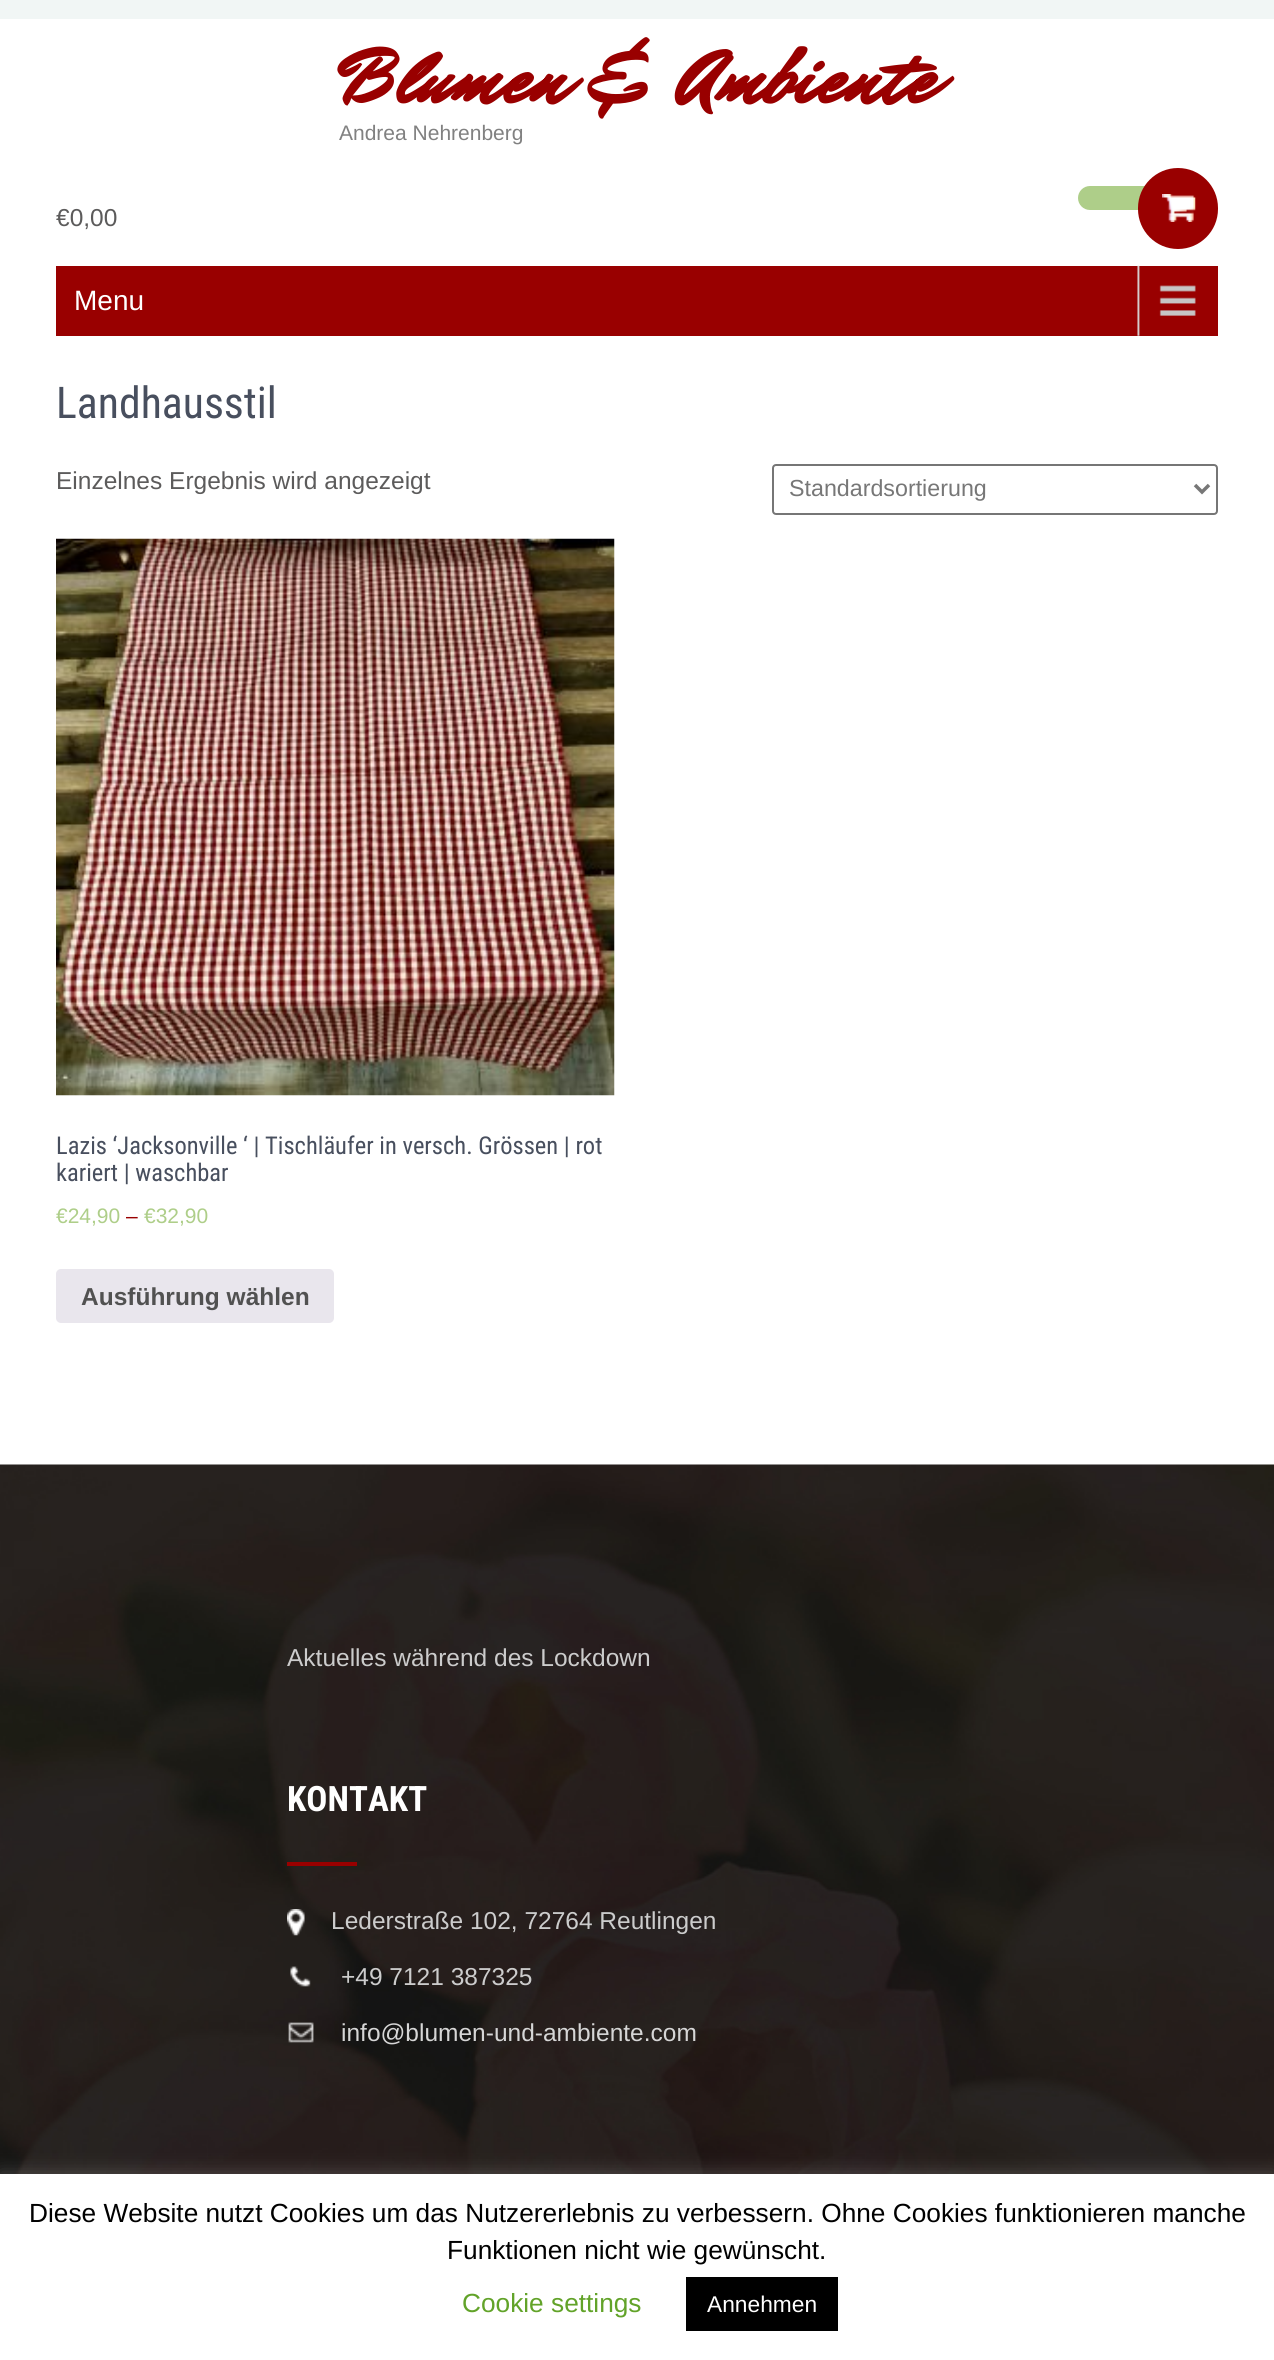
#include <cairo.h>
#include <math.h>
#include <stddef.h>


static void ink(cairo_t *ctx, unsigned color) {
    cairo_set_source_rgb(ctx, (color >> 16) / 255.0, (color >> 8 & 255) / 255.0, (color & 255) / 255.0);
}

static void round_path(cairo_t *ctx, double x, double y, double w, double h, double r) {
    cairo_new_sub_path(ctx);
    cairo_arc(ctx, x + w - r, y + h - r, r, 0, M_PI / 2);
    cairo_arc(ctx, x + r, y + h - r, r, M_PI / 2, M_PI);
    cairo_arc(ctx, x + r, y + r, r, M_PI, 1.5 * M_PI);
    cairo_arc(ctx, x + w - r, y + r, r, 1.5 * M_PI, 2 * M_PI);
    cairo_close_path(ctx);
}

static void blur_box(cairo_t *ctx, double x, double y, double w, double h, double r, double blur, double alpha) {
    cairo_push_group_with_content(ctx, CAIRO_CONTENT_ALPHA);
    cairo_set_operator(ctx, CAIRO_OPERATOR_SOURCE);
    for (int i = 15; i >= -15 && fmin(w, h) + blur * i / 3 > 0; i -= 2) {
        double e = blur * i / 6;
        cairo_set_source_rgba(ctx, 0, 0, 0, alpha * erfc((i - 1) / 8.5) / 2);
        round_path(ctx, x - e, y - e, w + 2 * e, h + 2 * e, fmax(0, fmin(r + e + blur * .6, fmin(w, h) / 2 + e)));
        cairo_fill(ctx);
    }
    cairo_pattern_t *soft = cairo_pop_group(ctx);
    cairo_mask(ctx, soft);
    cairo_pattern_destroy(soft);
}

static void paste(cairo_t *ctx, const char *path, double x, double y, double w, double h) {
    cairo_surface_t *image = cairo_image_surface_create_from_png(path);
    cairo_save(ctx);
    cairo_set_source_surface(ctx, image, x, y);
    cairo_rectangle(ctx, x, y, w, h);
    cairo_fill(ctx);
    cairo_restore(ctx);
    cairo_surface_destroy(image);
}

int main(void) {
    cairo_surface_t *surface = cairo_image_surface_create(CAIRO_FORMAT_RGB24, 1274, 2360);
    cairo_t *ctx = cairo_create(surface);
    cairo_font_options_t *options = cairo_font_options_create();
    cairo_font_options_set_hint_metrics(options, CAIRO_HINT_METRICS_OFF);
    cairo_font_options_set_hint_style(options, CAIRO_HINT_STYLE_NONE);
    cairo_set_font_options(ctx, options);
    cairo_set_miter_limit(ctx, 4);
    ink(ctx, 0xFFFFFF);
    cairo_paint(ctx);
    ink(ctx, 0xF1F6F5);
    cairo_rectangle(ctx, 0, 0, 1274, 19);
    cairo_fill(ctx);
    cairo_select_font_face(ctx, "Mr Dafoe", CAIRO_FONT_SLANT_NORMAL, CAIRO_FONT_WEIGHT_BOLD);
    cairo_set_font_size(ctx, 78.75);
    ink(ctx, 0x990000);
    cairo_move_to(ctx, 339, 102);
    cairo_show_text(ctx, "Blumen & Ambiente");
    cairo_select_font_face(ctx, "Liberation Sans", CAIRO_FONT_SLANT_NORMAL, CAIRO_FONT_WEIGHT_NORMAL);
    cairo_set_font_size(ctx, 21);
    ink(ctx, 0x818181);
    cairo_move_to(ctx, 339, 140);
    cairo_show_text(ctx, "Andrea Nehrenberg");
    ink(ctx, 0xAECE89);
    round_path(ctx, 1078, 186, 123, 24, 12);
    cairo_fill(ctx);
    ink(ctx, 0x990000);
    round_path(ctx, 1138, 168, 80, 81, 40);
    cairo_fill(ctx);
    paste(ctx, "media/1.png", 1162, 194, 34, 28);
    cairo_set_font_size(ctx, 24.5);
    ink(ctx, 0x5C5B5B);
    cairo_move_to(ctx, 56, 226);
    cairo_show_text(ctx, "€0,00");
    ink(ctx, 0x990000);
    cairo_rectangle(ctx, 56, 266, 1162, 70);
    cairo_fill(ctx);
    paste(ctx, "media/2.png", 1137, 265, 59, 71);
    cairo_set_font_size(ctx, 28);
    ink(ctx, 0xFFFFFF);
    cairo_move_to(ctx, 74, 310);
    cairo_show_text(ctx, "Menu");
    cairo_select_font_face(ctx, "Roboto Condensed", CAIRO_FONT_SLANT_NORMAL, CAIRO_FONT_WEIGHT_NORMAL);
    cairo_set_font_size(ctx, 43.75);
    ink(ctx, 0x484F5E);
    cairo_move_to(ctx, 56, 418);
    cairo_show_text(ctx, "Landhausstil");
    cairo_select_font_face(ctx, "Liberation Sans", CAIRO_FONT_SLANT_NORMAL, CAIRO_FONT_WEIGHT_NORMAL);
    cairo_set_font_size(ctx, 24.5);
    ink(ctx, 0x5C5B5B);
    cairo_move_to(ctx, 56, 489);
    cairo_show_text(ctx, "Einzelnes Ergebnis wird angezeigt");
    round_path(ctx, 773, 465, 444, 49, 3);
    ink(ctx, 0x767676);
    cairo_stroke(ctx);
    cairo_new_path(ctx);
    cairo_move_to(ctx, 1195, 485);
    cairo_line_to(ctx, 1202, 492);
    cairo_line_to(ctx, 1209, 485);
    ink(ctx, 0x777777);
    cairo_set_line_width(ctx, 3.5);
    cairo_stroke(ctx);
    cairo_set_font_size(ctx, 23.25);
    cairo_move_to(ctx, 789, 496);
    cairo_show_text(ctx, "Standardsortierung");
    paste(ctx, "media/3.png", 56, 538, 559, 558);
    cairo_select_font_face(ctx, "Roboto Condensed", CAIRO_FONT_SLANT_NORMAL, CAIRO_FONT_WEIGHT_NORMAL);
    cairo_set_font_size(ctx, 24.5);
    ink(ctx, 0x484F5E);
    cairo_move_to(ctx, 56, 1154);
    cairo_show_text(ctx, "Lazis ‘Jacksonville ‘ | Tischläufer in versch. Grössen | rot");
    cairo_move_to(ctx, 56, 1181);
    cairo_show_text(ctx, "kariert | waschbar");
    cairo_select_font_face(ctx, "Liberation Sans", CAIRO_FONT_SLANT_NORMAL, CAIRO_FONT_WEIGHT_NORMAL);
    cairo_set_font_size(ctx, 21);
    ink(ctx, 0xAECE89);
    cairo_move_to(ctx, 56, 1223);
    cairo_show_text(ctx, "€24,90");
    ink(ctx, 0x990000);
    cairo_move_to(ctx, 126, 1223);
    cairo_show_text(ctx, "–");
    ink(ctx, 0xAECE89);
    cairo_move_to(ctx, 144, 1223);
    cairo_show_text(ctx, "€32,90");
    ink(ctx, 0xE9E6ED);
    round_path(ctx, 56, 1269, 278, 54, 5);
    cairo_fill(ctx);
    cairo_select_font_face(ctx, "Liberation Sans", CAIRO_FONT_SLANT_NORMAL, CAIRO_FONT_WEIGHT_BOLD);
    cairo_set_font_size(ctx, 24.5);
    ink(ctx, 0x515151);
    cairo_move_to(ctx, 81, 1305);
    cairo_show_text(ctx, "Ausführung wählen");
    paste(ctx, "media/4.png", 0, 1464, 1274, 710);
    cairo_select_font_face(ctx, "Liberation Sans", CAIRO_FONT_SLANT_NORMAL, CAIRO_FONT_WEIGHT_NORMAL);
    ink(ctx, 0xCCCCCC);
    cairo_move_to(ctx, 287, 1666);
    cairo_show_text(ctx, "Aktuelles während des Lockdown");
    cairo_select_font_face(ctx, "Roboto Condensed", CAIRO_FONT_SLANT_NORMAL, CAIRO_FONT_WEIGHT_BOLD);
    cairo_set_font_size(ctx, 35);
    ink(ctx, 0xFFFFFF);
    cairo_move_to(ctx, 287, 1811);
    cairo_show_text(ctx, "KONTAKT");
    ink(ctx, 0x990000);
    cairo_rectangle(ctx, 287, 1862, 70, 4);
    cairo_fill(ctx);
    paste(ctx, "media/5.png", 287, 1909, 18, 27);
    cairo_select_font_face(ctx, "Liberation Sans", CAIRO_FONT_SLANT_NORMAL, CAIRO_FONT_WEIGHT_NORMAL);
    cairo_set_font_size(ctx, 24.5);
    ink(ctx, 0xCCCCCC);
    cairo_move_to(ctx, 331, 1929);
    cairo_show_text(ctx, "Lederstraße 102, 72764 Reutlingen");
    paste(ctx, "media/6.png", 290, 1966, 21, 21);
    cairo_move_to(ctx, 341, 1985);
    cairo_show_text(ctx, "+49 7121 387325");
    paste(ctx, "media/7.png", 288, 2022, 26, 21);
    ink(ctx, 0xD6D6D6);
    cairo_move_to(ctx, 341, 2041);
    cairo_show_text(ctx, "info@blumen-und-ambiente.com");
    ink(ctx, 0xACABAB);
    blur_box(ctx, 0, 2172, 1274, 187, 0, 9, 0.3);
    ink(ctx, 0xFFFFFF);
    cairo_rectangle(ctx, 0, 2174, 1274, 186);
    cairo_fill(ctx);
    cairo_set_font_size(ctx, 26.25);
    ink(ctx, 0x000000);
    cairo_move_to(ctx, 29, 2222);
    cairo_show_text(ctx, "Diese Website nutzt Cookies um das Nutzererlebnis zu verbessern. Ohne Cookies funktionieren manche");
    cairo_move_to(ctx, 447, 2259);
    cairo_show_text(ctx, "Funktionen nicht wie gewünscht.");
    ink(ctx, 0x62A329);
    cairo_move_to(ctx, 462, 2312);
    cairo_show_text(ctx, "Cookie settings");
    ink(ctx, 0x000000);
    cairo_rectangle(ctx, 686, 2277, 152, 54);
    cairo_fill(ctx);
    cairo_set_font_size(ctx, 22.75);
    ink(ctx, 0xFFFFFF);
    cairo_move_to(ctx, 707, 2312);
    cairo_show_text(ctx, "Annehmen");
    cairo_surface_write_to_png(surface, "image.png");
    cairo_font_options_destroy(options);
    cairo_destroy(ctx);
    cairo_surface_destroy(surface);
    return 0;
}
